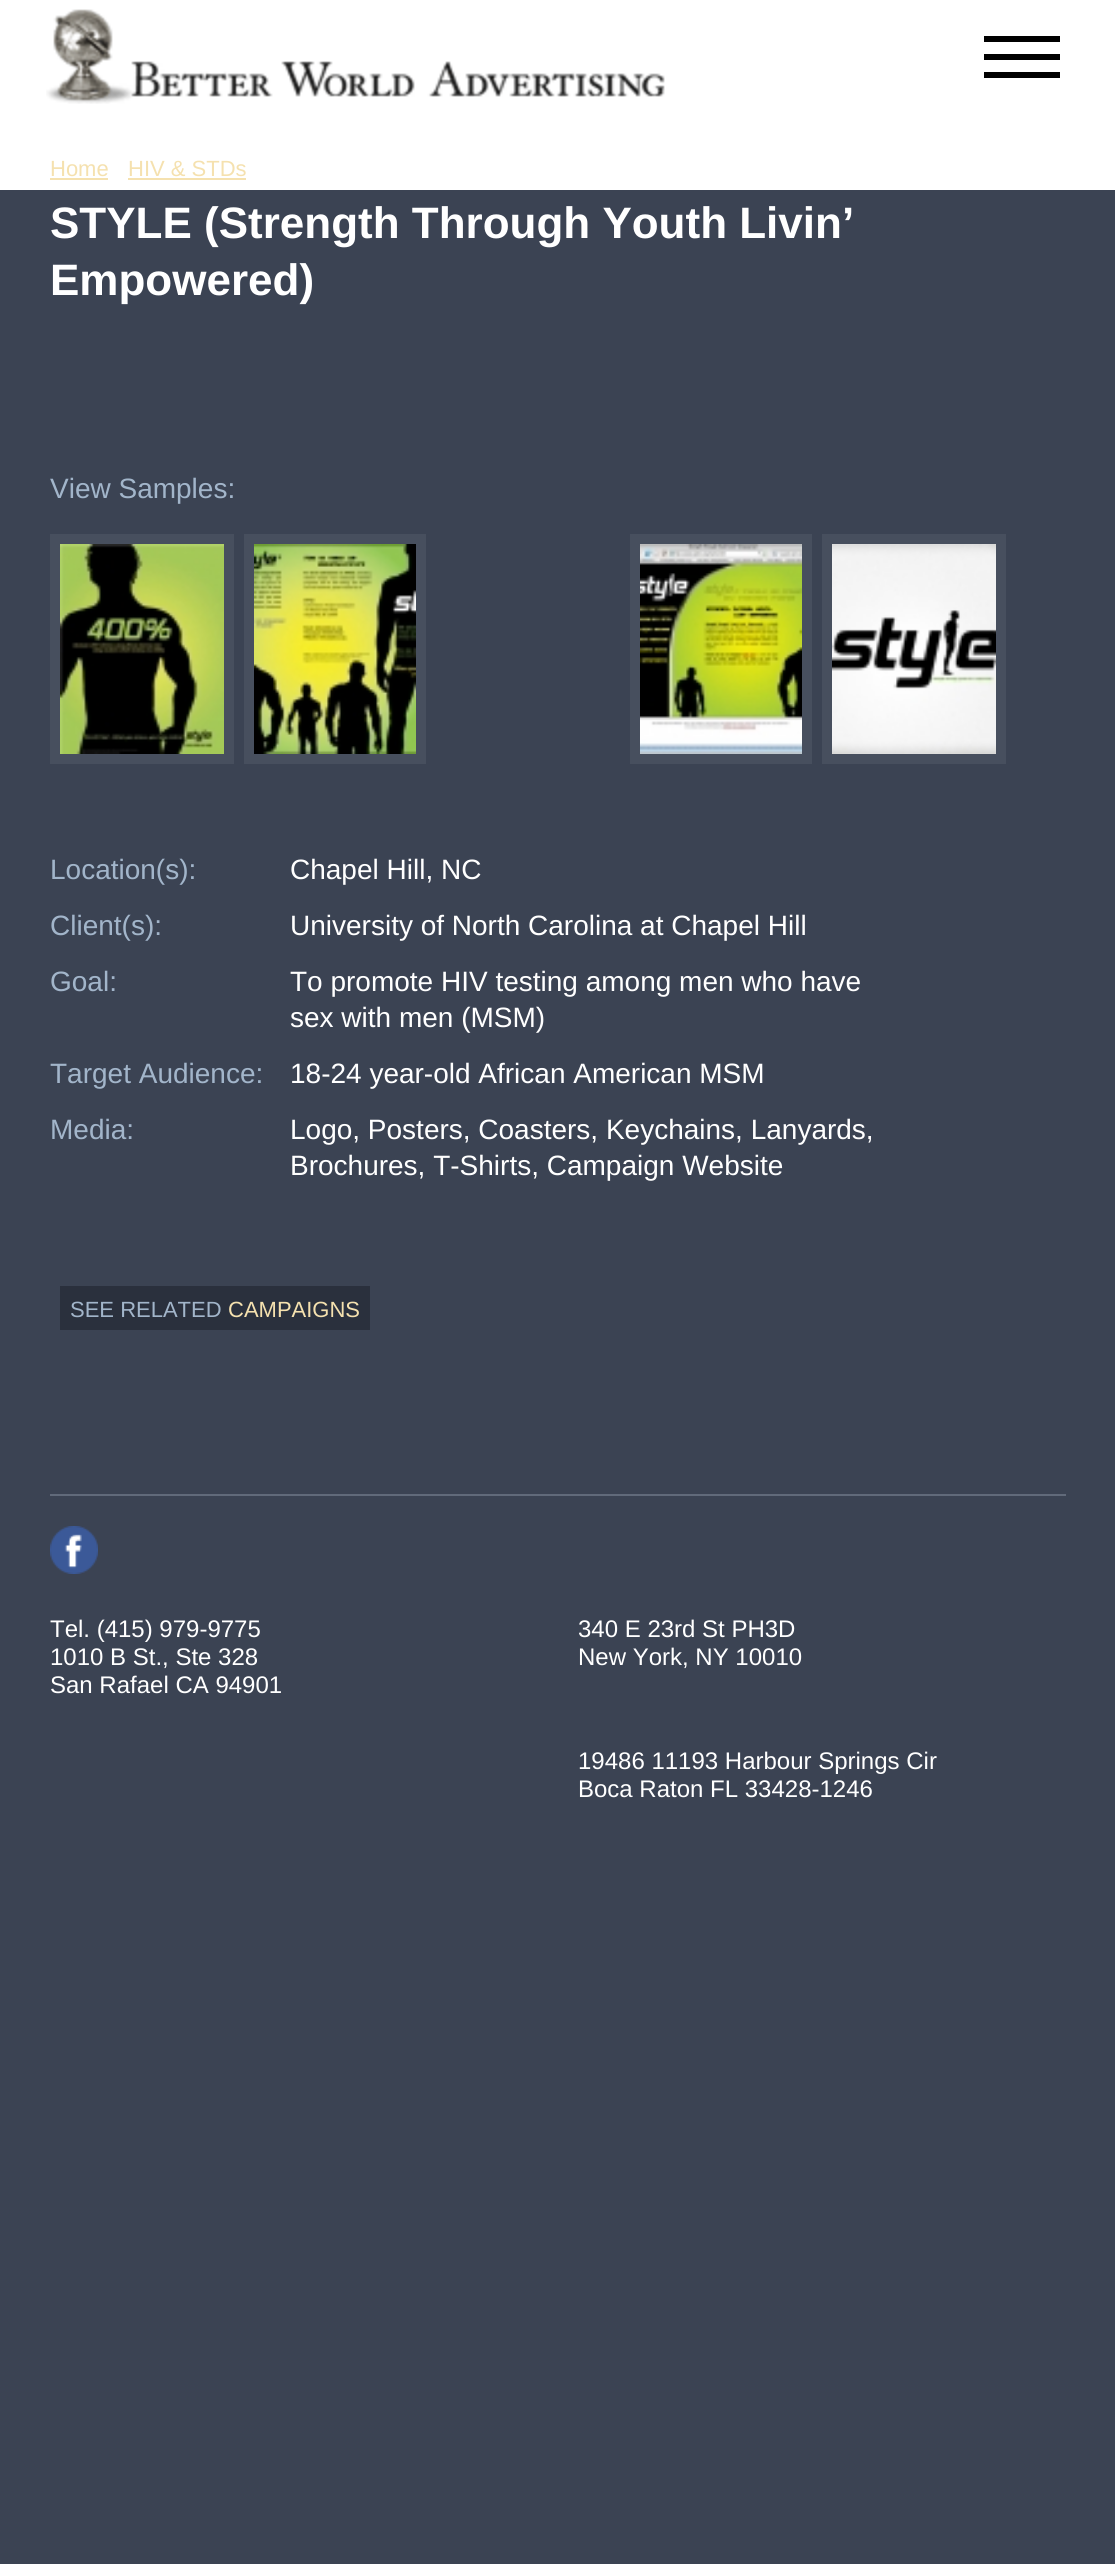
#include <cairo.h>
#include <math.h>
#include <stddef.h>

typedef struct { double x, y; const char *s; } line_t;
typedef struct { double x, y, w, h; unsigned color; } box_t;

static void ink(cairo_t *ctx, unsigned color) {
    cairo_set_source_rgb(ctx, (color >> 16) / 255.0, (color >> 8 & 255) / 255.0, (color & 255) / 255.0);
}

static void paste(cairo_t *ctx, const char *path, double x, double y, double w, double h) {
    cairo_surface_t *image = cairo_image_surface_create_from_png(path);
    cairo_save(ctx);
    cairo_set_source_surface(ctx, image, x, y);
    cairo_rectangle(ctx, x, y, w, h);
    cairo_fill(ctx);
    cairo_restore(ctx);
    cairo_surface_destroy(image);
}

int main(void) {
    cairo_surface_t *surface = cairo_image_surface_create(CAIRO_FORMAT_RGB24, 1115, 2564);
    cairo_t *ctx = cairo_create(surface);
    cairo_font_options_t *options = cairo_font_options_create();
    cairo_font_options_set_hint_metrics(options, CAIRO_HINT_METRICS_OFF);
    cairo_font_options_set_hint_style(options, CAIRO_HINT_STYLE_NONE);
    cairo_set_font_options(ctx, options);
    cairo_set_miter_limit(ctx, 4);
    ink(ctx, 0x3B4353);
    cairo_paint(ctx);
    ink(ctx, 0xFFFFFF);
    cairo_rectangle(ctx, 0, 0, 1115, 190);
    cairo_fill(ctx);
    paste(ctx, "media/1.png", 46, 9, 619, 95);
    {
        static const box_t items[] = {
            {984, 54, 76, 6, 0x000000},
            {984, 36, 76, 6, 0x000000},
            {984, 72, 76, 6, 0x000000},
        };
        for (size_t i = 0; i < sizeof items / sizeof *items; i++) {
            ink(ctx, items[i].color);
            cairo_rectangle(ctx, items[i].x, items[i].y, items[i].w, items[i].h);
            cairo_fill(ctx);
        }
    }
    cairo_select_font_face(ctx, "Liberation Sans", CAIRO_FONT_SLANT_NORMAL, CAIRO_FONT_WEIGHT_NORMAL);
    cairo_set_font_size(ctx, 22);
    ink(ctx, 0xF5E1AF);
    cairo_move_to(ctx, 50, 176);
    cairo_show_text(ctx, "Home");
    cairo_rectangle(ctx, 50, 178, 58, 2);
    cairo_fill(ctx);
    cairo_move_to(ctx, 128, 176);
    cairo_show_text(ctx, "HIV & STDs");
    cairo_rectangle(ctx, 128, 178, 118, 2);
    cairo_fill(ctx);
    cairo_select_font_face(ctx, "Liberation Sans", CAIRO_FONT_SLANT_NORMAL, CAIRO_FONT_WEIGHT_BOLD);
    cairo_set_font_size(ctx, 44);
    ink(ctx, 0xFFFFFF);
    cairo_move_to(ctx, 50, 238);
    cairo_show_text(ctx, "STYLE (Strength Through Youth Livin’");
    cairo_move_to(ctx, 50, 295);
    cairo_show_text(ctx, "Empowered)");
    cairo_select_font_face(ctx, "Liberation Sans", CAIRO_FONT_SLANT_NORMAL, CAIRO_FONT_WEIGHT_NORMAL);
    cairo_set_font_size(ctx, 28);
    ink(ctx, 0xA2B5CA);
    cairo_move_to(ctx, 50, 498);
    cairo_show_text(ctx, "View Samples:");
    cairo_rectangle(ctx, 55, 539, 174, 220);
    ink(ctx, 0x474F5E);
    cairo_set_line_width(ctx, 10);
    cairo_stroke(ctx);
    paste(ctx, "media/2.png", 60, 544, 164, 210);
    cairo_rectangle(ctx, 249, 539, 172, 220);
    cairo_stroke(ctx);
    paste(ctx, "media/3.png", 254, 544, 162, 210);
    cairo_rectangle(ctx, 635, 539, 172, 220);
    cairo_stroke(ctx);
    paste(ctx, "media/4.png", 640, 544, 162, 210);
    cairo_rectangle(ctx, 827, 539, 174, 220);
    cairo_stroke(ctx);
    paste(ctx, "media/5.png", 832, 544, 164, 210);
    ink(ctx, 0xA2B5CA);
    cairo_move_to(ctx, 50, 879);
    cairo_show_text(ctx, "Location(s):");
    ink(ctx, 0xFFFFFF);
    cairo_move_to(ctx, 290, 879);
    cairo_show_text(ctx, "Chapel Hill, NC");
    ink(ctx, 0xA2B5CA);
    cairo_move_to(ctx, 50, 935);
    cairo_show_text(ctx, "Client(s):");
    ink(ctx, 0xFFFFFF);
    cairo_move_to(ctx, 290, 935);
    cairo_show_text(ctx, "University of North Carolina at Chapel Hill");
    ink(ctx, 0xA2B5CA);
    cairo_move_to(ctx, 50, 991);
    cairo_show_text(ctx, "Goal:");
    ink(ctx, 0xFFFFFF);
    cairo_move_to(ctx, 290, 991);
    cairo_show_text(ctx, "To promote HIV testing among men who have");
    cairo_move_to(ctx, 290, 1027);
    cairo_show_text(ctx, "sex with men (MSM)");
    ink(ctx, 0xA2B5CA);
    cairo_move_to(ctx, 50, 1083);
    cairo_show_text(ctx, "Target Audience:");
    ink(ctx, 0xFFFFFF);
    cairo_move_to(ctx, 290, 1083);
    cairo_show_text(ctx, "18-24 year-old African American MSM");
    ink(ctx, 0xA2B5CA);
    cairo_move_to(ctx, 50, 1139);
    cairo_show_text(ctx, "Media:");
    ink(ctx, 0xFFFFFF);
    cairo_move_to(ctx, 290, 1139);
    cairo_show_text(ctx, "Logo, Posters, Coasters, Keychains, Lanyards,");
    cairo_move_to(ctx, 290, 1175);
    cairo_show_text(ctx, "Brochures, T-Shirts, Campaign Website");
    ink(ctx, 0x2A303D);
    cairo_rectangle(ctx, 60, 1286, 310, 44);
    cairo_fill(ctx);
    cairo_set_font_size(ctx, 22);
    ink(ctx, 0xA2B5CA);
    cairo_move_to(ctx, 70, 1317);
    cairo_show_text(ctx, "SEE RELATED");
    ink(ctx, 0xF5E1AF);
    cairo_move_to(ctx, 228, 1317);
    cairo_show_text(ctx, "CAMPAIGNS");
    ink(ctx, 0x616A7A);
    cairo_rectangle(ctx, 50, 1494, 1016, 2);
    cairo_fill(ctx);
    paste(ctx, "media/6.png", 50, 1526, 48, 48);
    cairo_set_font_size(ctx, 24);
    ink(ctx, 0xFFFFFF);
    {
        static const line_t items[] = {
            {50, 1637, "Tel. (415) 979-9775"},
            {50, 1665, "1010 B St., Ste 328"},
            {50, 1693, "San Rafael CA 94901"},
            {578, 1637, "340 E 23rd St PH3D"},
            {578, 1665, "New York, NY 10010"},
            {578, 1769, "19486 11193 Harbour Springs Cir"},
            {578, 1797, "Boca Raton FL 33428-1246"},
        };
        for (size_t i = 0; i < sizeof items / sizeof *items; i++) {
            cairo_move_to(ctx, items[i].x, items[i].y);
            cairo_show_text(ctx, items[i].s);
        }
    }
    cairo_surface_write_to_png(surface, "image.png");
    cairo_font_options_destroy(options);
    cairo_destroy(ctx);
    cairo_surface_destroy(surface);
    return 0;
}
